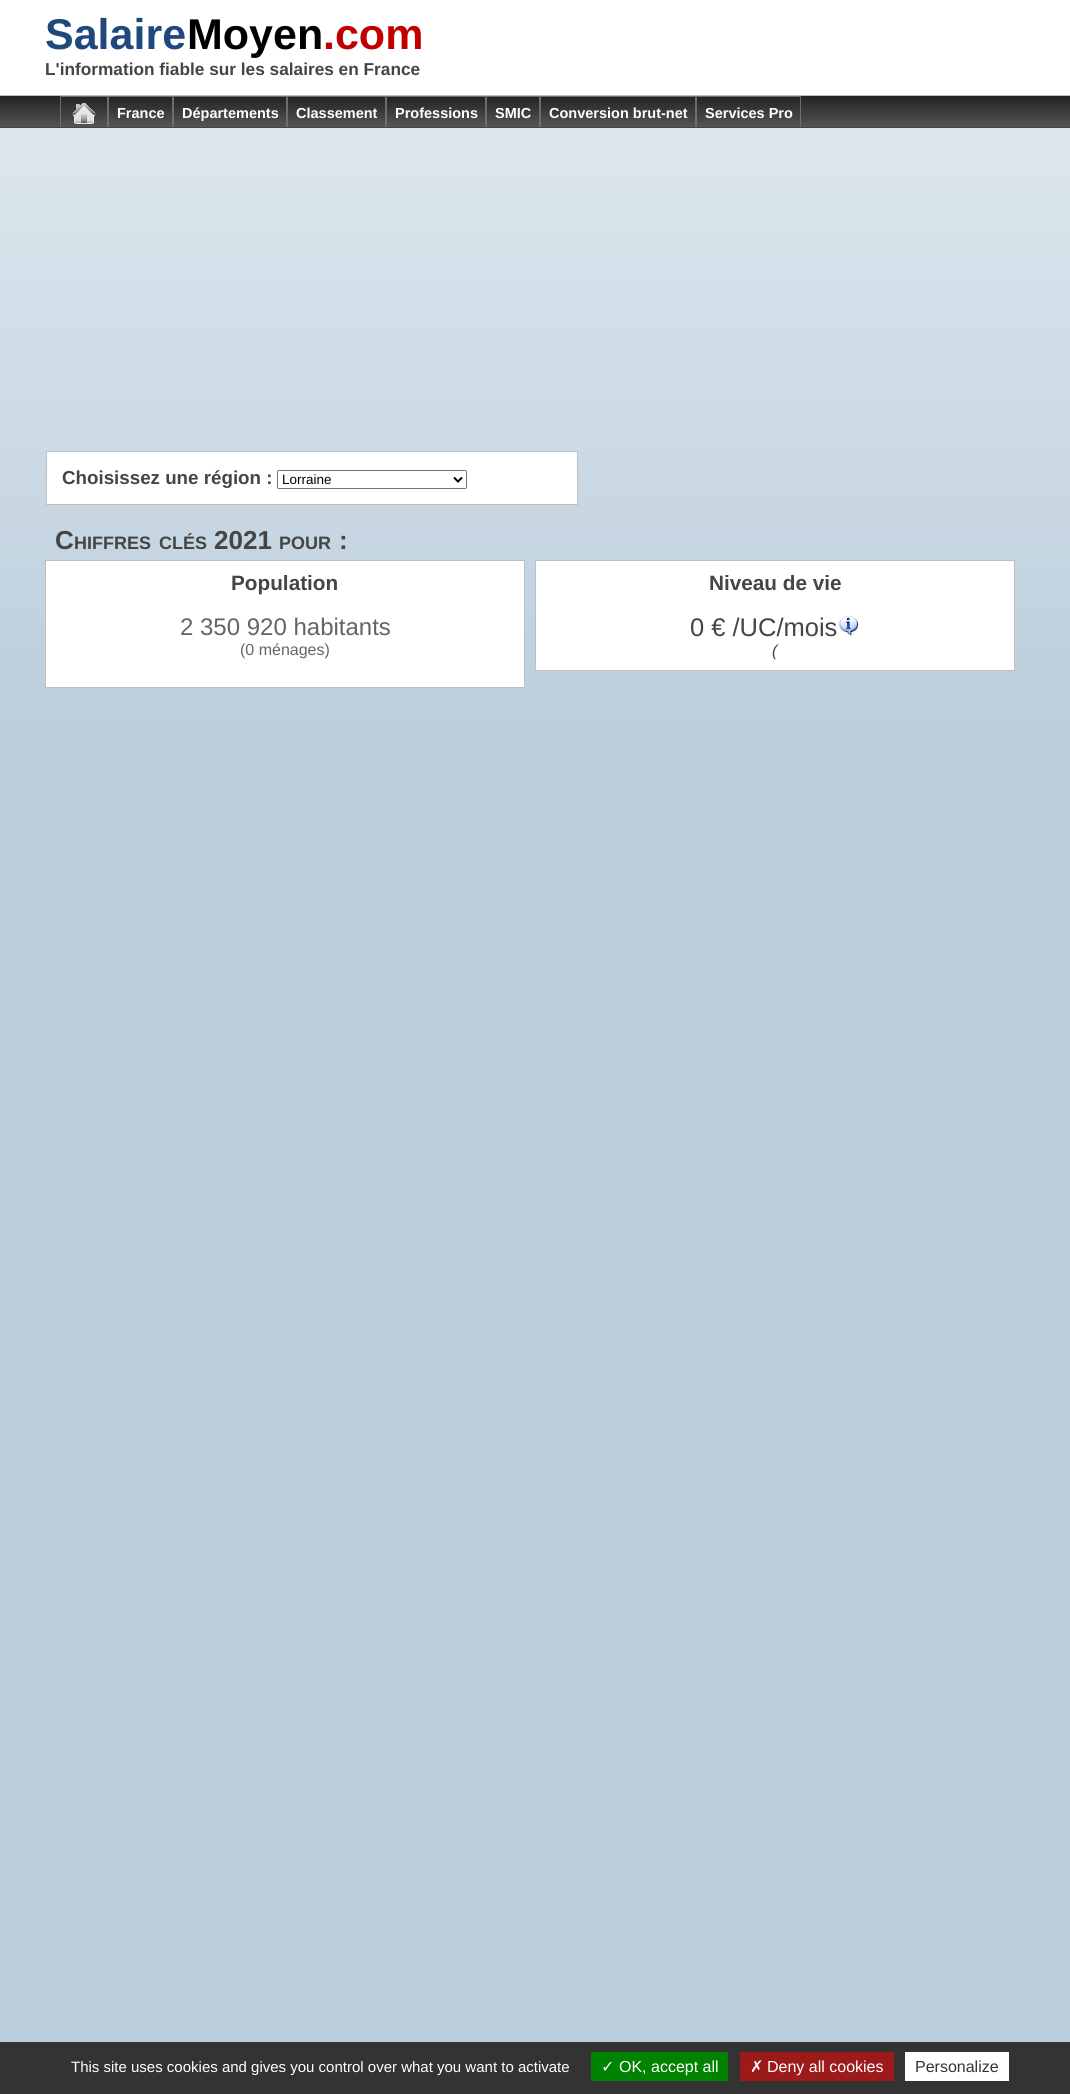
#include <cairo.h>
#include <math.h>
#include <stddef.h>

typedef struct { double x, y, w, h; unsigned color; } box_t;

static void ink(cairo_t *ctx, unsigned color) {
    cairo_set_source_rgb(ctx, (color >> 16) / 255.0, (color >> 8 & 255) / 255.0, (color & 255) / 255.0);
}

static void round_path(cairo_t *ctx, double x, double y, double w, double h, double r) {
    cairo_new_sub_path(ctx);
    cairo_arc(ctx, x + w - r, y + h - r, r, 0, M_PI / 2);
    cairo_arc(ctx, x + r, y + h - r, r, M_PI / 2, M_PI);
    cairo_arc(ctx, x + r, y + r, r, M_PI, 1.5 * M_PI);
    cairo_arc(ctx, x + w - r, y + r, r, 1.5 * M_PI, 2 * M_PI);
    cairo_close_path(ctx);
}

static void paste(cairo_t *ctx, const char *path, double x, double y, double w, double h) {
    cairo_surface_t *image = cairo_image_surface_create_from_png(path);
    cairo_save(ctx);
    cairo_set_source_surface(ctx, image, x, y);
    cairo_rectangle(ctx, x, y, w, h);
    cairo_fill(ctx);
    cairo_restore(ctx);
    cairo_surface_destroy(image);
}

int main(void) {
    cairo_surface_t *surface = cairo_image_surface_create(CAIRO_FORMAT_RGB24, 1070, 2094);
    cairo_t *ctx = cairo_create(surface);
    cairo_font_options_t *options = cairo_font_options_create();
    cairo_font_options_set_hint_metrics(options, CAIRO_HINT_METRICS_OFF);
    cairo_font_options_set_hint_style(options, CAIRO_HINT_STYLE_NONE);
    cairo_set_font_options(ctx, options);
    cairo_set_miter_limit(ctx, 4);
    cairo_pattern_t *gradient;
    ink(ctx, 0xFFFFFF);
    cairo_paint(ctx);
    gradient = cairo_pattern_create_linear(535, 0, 535, 2094);
    cairo_pattern_add_color_stop_rgba(gradient, 0, 0.89, 0.925, 0.945, 1);
    cairo_pattern_add_color_stop_rgba(gradient, 0.35, 0.737, 0.808, 0.863, 1);
    cairo_set_source(ctx, gradient);
    cairo_pattern_destroy(gradient);
    cairo_rectangle(ctx, 0, 128, 1070, 1914);
    cairo_fill(ctx);
    cairo_select_font_face(ctx, "Liberation Sans", CAIRO_FONT_SLANT_NORMAL, CAIRO_FONT_WEIGHT_BOLD);
    cairo_set_font_size(ctx, 43);
    ink(ctx, 0x1F497D);
    cairo_move_to(ctx, 45, 49);
    cairo_show_text(ctx, "Salaire");
    ink(ctx, 0x000000);
    cairo_move_to(ctx, 187, 49);
    cairo_show_text(ctx, "Moyen");
    ink(ctx, 0xC00000);
    cairo_move_to(ctx, 323, 49);
    cairo_show_text(ctx, ".com");
    cairo_set_font_size(ctx, 17.25);
    ink(ctx, 0x454545);
    cairo_move_to(ctx, 45, 75);
    cairo_show_text(ctx, "L'information fiable sur les salaires en France");
    gradient = cairo_pattern_create_linear(0, 96, 0, 127);
    cairo_pattern_add_color_stop_rgba(gradient, 0, 0.133, 0.133, 0.133, 1);
    cairo_pattern_add_color_stop_rgba(gradient, 1, 0.333, 0.333, 0.333, 1);
    cairo_set_source(ctx, gradient);
    cairo_pattern_destroy(gradient);
    cairo_rectangle(ctx, 0, 96, 1070, 31);
    cairo_fill(ctx);
    {
        static const box_t items[] = {
            {0, 95, 1070, 1, 0xBDBDBD},
            {0, 127, 1070, 1, 0x454545},
            {60, 96, 741, 1, 0x6D6D6D},
            {107, 96, 2, 31, 0x6D6D6D},
            {60, 96, 1, 31, 0x6D6D6D},
        };
        for (size_t i = 0; i < sizeof items / sizeof *items; i++) {
            ink(ctx, items[i].color);
            cairo_rectangle(ctx, items[i].x, items[i].y, items[i].w, items[i].h);
            cairo_fill(ctx);
        }
    }
    paste(ctx, "media/1.png", 72, 102, 24, 22);
    cairo_rectangle(ctx, 172, 96, 2, 31);
    cairo_fill(ctx);
    cairo_set_font_size(ctx, 14.5);
    ink(ctx, 0xFFFFFF);
    cairo_move_to(ctx, 117, 118);
    cairo_show_text(ctx, "France");
    ink(ctx, 0x6D6D6D);
    cairo_rectangle(ctx, 286, 96, 2, 31);
    cairo_fill(ctx);
    ink(ctx, 0xFFFFFF);
    cairo_move_to(ctx, 182, 118);
    cairo_show_text(ctx, "Départements");
    ink(ctx, 0x6D6D6D);
    cairo_rectangle(ctx, 385, 96, 2, 31);
    cairo_fill(ctx);
    ink(ctx, 0xFFFFFF);
    cairo_move_to(ctx, 296, 118);
    cairo_show_text(ctx, "Classement");
    ink(ctx, 0x6D6D6D);
    cairo_rectangle(ctx, 485, 96, 2, 31);
    cairo_fill(ctx);
    ink(ctx, 0xFFFFFF);
    cairo_move_to(ctx, 395, 118);
    cairo_show_text(ctx, "Professions");
    ink(ctx, 0x6D6D6D);
    cairo_rectangle(ctx, 539, 96, 2, 31);
    cairo_fill(ctx);
    ink(ctx, 0xFFFFFF);
    cairo_move_to(ctx, 495, 118);
    cairo_show_text(ctx, "SMIC");
    ink(ctx, 0x6D6D6D);
    cairo_rectangle(ctx, 695, 96, 2, 31);
    cairo_fill(ctx);
    ink(ctx, 0xFFFFFF);
    cairo_move_to(ctx, 549, 118);
    cairo_show_text(ctx, "Conversion brut-net");
    ink(ctx, 0x6D6D6D);
    cairo_rectangle(ctx, 800, 96, 1, 31);
    cairo_fill(ctx);
    ink(ctx, 0xFFFFFF);
    cairo_move_to(ctx, 705, 118);
    cairo_show_text(ctx, "Services Pro");
    cairo_rectangle(ctx, 46.5, 451.5, 531, 53);
    cairo_fill_preserve(ctx);
    ink(ctx, 0xBFBFBF);
    cairo_set_line_width(ctx, 1);
    cairo_stroke(ctx);
    cairo_set_font_size(ctx, 18.75);
    ink(ctx, 0x454545);
    cairo_move_to(ctx, 62, 484);
    cairo_show_text(ctx, "Choisissez une région :");
    round_path(ctx, 277.5, 470.5, 189, 18, 1.5);
    ink(ctx, 0x767676);
    cairo_stroke(ctx);
    cairo_new_path(ctx);
    cairo_move_to(ctx, 454, 477.5);
    cairo_line_to(ctx, 458, 481.5);
    cairo_line_to(ctx, 462, 477.5);
    ink(ctx, 0x000000);
    cairo_set_line_width(ctx, 2);
    cairo_stroke(ctx);
    cairo_select_font_face(ctx, "Liberation Sans", CAIRO_FONT_SLANT_NORMAL, CAIRO_FONT_WEIGHT_NORMAL);
    cairo_set_font_size(ctx, 13.5);
    cairo_move_to(ctx, 282, 484);
    cairo_show_text(ctx, "Lorraine");
    cairo_select_font_face(ctx, "Liberation Sans", CAIRO_FONT_SLANT_NORMAL, CAIRO_FONT_WEIGHT_BOLD);
    cairo_set_font_size(ctx, 26);
    ink(ctx, 0x454545);
    cairo_move_to(ctx, 55, 549);
    cairo_show_text(ctx, "C");
    cairo_set_font_size(ctx, 18);
    cairo_move_to(ctx, 74, 549);
    cairo_show_text(ctx, "HIFFRES");
    cairo_move_to(ctx, 159, 549);
    cairo_show_text(ctx, "CLÉS");
    cairo_set_font_size(ctx, 26);
    cairo_move_to(ctx, 214, 549);
    cairo_show_text(ctx, "2021");
    cairo_set_font_size(ctx, 18);
    cairo_move_to(ctx, 279, 549);
    cairo_show_text(ctx, "POUR");
    cairo_set_font_size(ctx, 26);
    cairo_move_to(ctx, 339, 549);
    cairo_show_text(ctx, ":");
    ink(ctx, 0xFFFFFF);
    cairo_rectangle(ctx, 45.5, 560.5, 479, 127);
    cairo_fill_preserve(ctx);
    ink(ctx, 0xBFBFBF);
    cairo_set_line_width(ctx, 1);
    cairo_stroke(ctx);
    cairo_set_font_size(ctx, 20.75);
    ink(ctx, 0x454545);
    cairo_move_to(ctx, 231, 590);
    cairo_show_text(ctx, "Population");
    cairo_select_font_face(ctx, "Liberation Sans", CAIRO_FONT_SLANT_NORMAL, CAIRO_FONT_WEIGHT_NORMAL);
    cairo_set_font_size(ctx, 24);
    ink(ctx, 0x646464);
    cairo_move_to(ctx, 180, 635);
    cairo_show_text(ctx, "2 350 920 habitants");
    cairo_set_font_size(ctx, 16);
    cairo_move_to(ctx, 240, 655);
    cairo_show_text(ctx, "(0 ménages)");
    ink(ctx, 0xFFFFFF);
    cairo_rectangle(ctx, 535.5, 560.5, 479, 110);
    cairo_fill_preserve(ctx);
    ink(ctx, 0xBFBFBF);
    cairo_stroke(ctx);
    cairo_select_font_face(ctx, "Liberation Sans", CAIRO_FONT_SLANT_NORMAL, CAIRO_FONT_WEIGHT_BOLD);
    cairo_set_font_size(ctx, 20.75);
    ink(ctx, 0x454545);
    cairo_move_to(ctx, 709, 590);
    cairo_show_text(ctx, "Niveau de vie");
    cairo_select_font_face(ctx, "Liberation Sans", CAIRO_FONT_SLANT_NORMAL, CAIRO_FONT_WEIGHT_NORMAL);
    cairo_set_font_size(ctx, 25.5);
    cairo_move_to(ctx, 690, 636);
    cairo_show_text(ctx, "0 € /UC/mois");
    paste(ctx, "media/2.png", 839, 616, 20, 20);
    cairo_select_font_face(ctx, "Liberation Sans", CAIRO_FONT_SLANT_ITALIC, CAIRO_FONT_WEIGHT_NORMAL);
    cairo_set_font_size(ctx, 16);
    cairo_move_to(ctx, 772, 656);
    cairo_show_text(ctx, "(");
    ink(ctx, 0x333333);
    cairo_rectangle(ctx, 0, 2042, 1070, 52);
    cairo_fill(ctx);
    cairo_select_font_face(ctx, "Liberation Sans", CAIRO_FONT_SLANT_NORMAL, CAIRO_FONT_WEIGHT_NORMAL);
    cairo_set_font_size(ctx, 15);
    ink(ctx, 0xFFFFFF);
    cairo_move_to(ctx, 71, 2072);
    cairo_show_text(ctx, "This site uses cookies and gives you control over what you want to activate");
    ink(ctx, 0x008300);
    cairo_rectangle(ctx, 591, 2052, 137, 29);
    cairo_fill(ctx);
    cairo_select_font_face(ctx, "DejaVu Sans", CAIRO_FONT_SLANT_NORMAL, CAIRO_FONT_WEIGHT_NORMAL);
    cairo_set_font_size(ctx, 16);
    ink(ctx, 0xFFFFFF);
    cairo_move_to(ctx, 601, 2072);
    cairo_show_text(ctx, "✓");
    cairo_select_font_face(ctx, "Liberation Sans", CAIRO_FONT_SLANT_NORMAL, CAIRO_FONT_WEIGHT_NORMAL);
    cairo_move_to(ctx, 619, 2072);
    cairo_show_text(ctx, "OK, accept all");
    ink(ctx, 0x9C1A1A);
    cairo_rectangle(ctx, 740, 2052, 154, 29);
    cairo_fill(ctx);
    cairo_select_font_face(ctx, "DejaVu Sans", CAIRO_FONT_SLANT_NORMAL, CAIRO_FONT_WEIGHT_NORMAL);
    ink(ctx, 0xFFFFFF);
    cairo_move_to(ctx, 750, 2072);
    cairo_show_text(ctx, "✗");
    cairo_select_font_face(ctx, "Liberation Sans", CAIRO_FONT_SLANT_NORMAL, CAIRO_FONT_WEIGHT_NORMAL);
    cairo_move_to(ctx, 767, 2072);
    cairo_show_text(ctx, "Deny all cookies");
    cairo_rectangle(ctx, 905, 2052, 104, 29);
    cairo_fill(ctx);
    ink(ctx, 0x333333);
    cairo_move_to(ctx, 915, 2072);
    cairo_show_text(ctx, "Personalize");
    cairo_surface_write_to_png(surface, "image.png");
    cairo_font_options_destroy(options);
    cairo_destroy(ctx);
    cairo_surface_destroy(surface);
    return 0;
}
